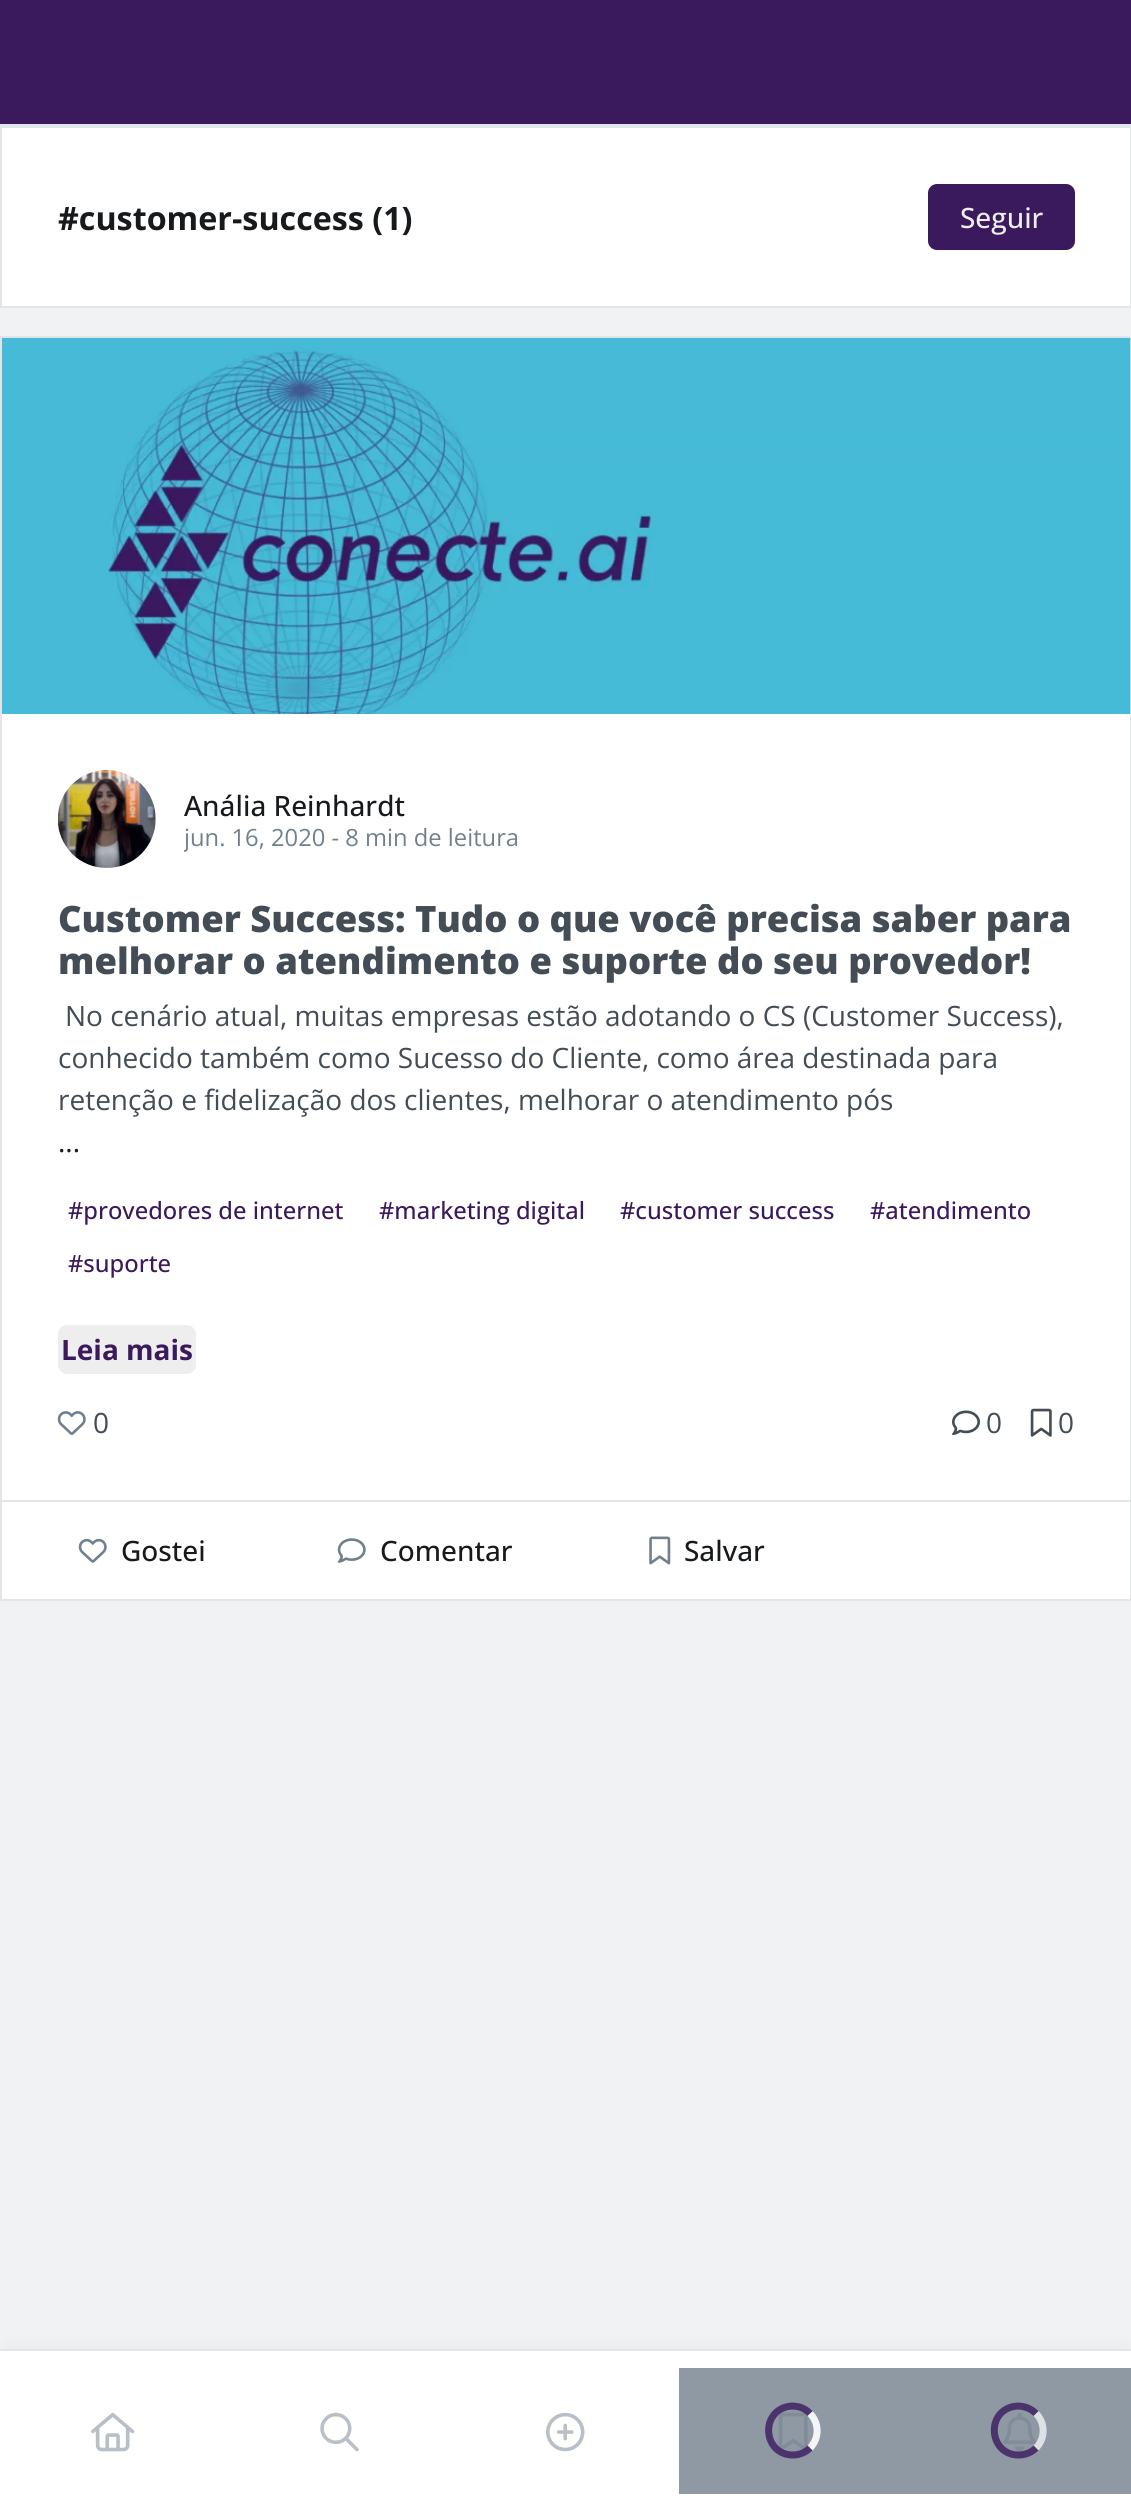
#include <cairo.h>
#include <math.h>
#include <stddef.h>

typedef struct { double x, y; const char *s; } line_t;
typedef struct { double x, y, w, h; unsigned color; } box_t;

static void ink(cairo_t *ctx, unsigned color) {
    cairo_set_source_rgb(ctx, (color >> 16) / 255.0, (color >> 8 & 255) / 255.0, (color & 255) / 255.0);
}

static void round_path(cairo_t *ctx, double x, double y, double w, double h, double r) {
    cairo_new_sub_path(ctx);
    cairo_arc(ctx, x + w - r, y + h - r, r, 0, M_PI / 2);
    cairo_arc(ctx, x + r, y + h - r, r, M_PI / 2, M_PI);
    cairo_arc(ctx, x + r, y + r, r, M_PI, 1.5 * M_PI);
    cairo_arc(ctx, x + w - r, y + r, r, 1.5 * M_PI, 2 * M_PI);
    cairo_close_path(ctx);
}

static void blur_box(cairo_t *ctx, double x, double y, double w, double h, double r, double blur, double alpha) {
    cairo_push_group_with_content(ctx, CAIRO_CONTENT_ALPHA);
    cairo_set_operator(ctx, CAIRO_OPERATOR_SOURCE);
    for (int i = 15; i >= -15 && fmin(w, h) + blur * i / 3 > 0; i -= 2) {
        double e = blur * i / 6;
        cairo_set_source_rgba(ctx, 0, 0, 0, alpha * erfc((i - 1) / 8.5) / 2);
        round_path(ctx, x - e, y - e, w + 2 * e, h + 2 * e, fmax(0, fmin(r + e + blur * .6, fmin(w, h) / 2 + e)));
        cairo_fill(ctx);
    }
    cairo_pattern_t *soft = cairo_pop_group(ctx);
    cairo_mask(ctx, soft);
    cairo_pattern_destroy(soft);
}

static void paste(cairo_t *ctx, const char *path, double x, double y, double w, double h) {
    cairo_surface_t *image = cairo_image_surface_create_from_png(path);
    cairo_save(ctx);
    cairo_set_source_surface(ctx, image, x, y);
    cairo_rectangle(ctx, x, y, w, h);
    cairo_fill(ctx);
    cairo_restore(ctx);
    cairo_surface_destroy(image);
}

int main(void) {
    cairo_surface_t *surface = cairo_image_surface_create(CAIRO_FORMAT_RGB24, 1131, 2509);
    cairo_t *ctx = cairo_create(surface);
    cairo_font_options_t *options = cairo_font_options_create();
    cairo_font_options_set_hint_metrics(options, CAIRO_HINT_METRICS_OFF);
    cairo_font_options_set_hint_style(options, CAIRO_HINT_STYLE_NONE);
    cairo_set_font_options(ctx, options);
    cairo_set_miter_limit(ctx, 4);
    ink(ctx, 0xF1F2F4);
    cairo_paint(ctx);
    ink(ctx, 0x3B195D);
    cairo_rectangle(ctx, 0, 0, 1131, 124);
    cairo_fill(ctx);
    ink(ctx, 0xE3E6E8);
    cairo_rectangle(ctx, 0, 124, 1131, 2);
    cairo_fill(ctx);
    ink(ctx, 0xFFFFFF);
    cairo_rectangle(ctx, 1, 127, 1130, 180);
    cairo_fill_preserve(ctx);
    ink(ctx, 0xE3E6E8);
    cairo_stroke(ctx);
    cairo_select_font_face(ctx, "Open Sans", CAIRO_FONT_SLANT_NORMAL, CAIRO_FONT_WEIGHT_BOLD);
    cairo_set_font_size(ctx, 32.25);
    ink(ctx, 0x171A1C);
    cairo_move_to(ctx, 58, 230);
    cairo_show_text(ctx, "#customer-success (1)");
    ink(ctx, 0x3B195D);
    round_path(ctx, 930, 186, 143, 62, 7);
    cairo_fill_preserve(ctx);
    cairo_set_line_width(ctx, 4);
    cairo_stroke(ctx);
    cairo_select_font_face(ctx, "Open Sans Medium", CAIRO_FONT_SLANT_NORMAL, CAIRO_FONT_WEIGHT_NORMAL);
    cairo_set_font_size(ctx, 28);
    ink(ctx, 0xEEEEEE);
    cairo_move_to(ctx, 960, 228);
    cairo_show_text(ctx, "Seguir");
    ink(ctx, 0xFFFFFF);
    cairo_rectangle(ctx, 2, 714, 1128, 885);
    cairo_fill(ctx);
    cairo_rectangle(ctx, 1, 337, 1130, 1263);
    ink(ctx, 0xE3E6E8);
    cairo_set_line_width(ctx, 2);
    cairo_stroke(ctx);
    paste(ctx, "media/1.png", 1, 337, 1130, 377);
    cairo_new_path(ctx);
    cairo_move_to(ctx, 62, 819.5);
    cairo_curve_to(ctx, 62, 795.5, 81.5, 775.5, 106, 775.5);
    cairo_curve_to(ctx, 130.5, 775.5, 150, 795.5, 150, 819.5);
    cairo_curve_to(ctx, 150, 844, 130.5, 864, 106, 864);
    cairo_curve_to(ctx, 81.5, 864, 62, 844, 62, 819.5);
    cairo_close_path(ctx);
    ink(ctx, 0xF1F2F4);
    cairo_set_line_width(ctx, 7.8);
    cairo_stroke(ctx);
    paste(ctx, "media/2.png", 57, 770, 99, 98);
    ink(ctx, 0x171A1C);
    cairo_move_to(ctx, 184, 816);
    cairo_show_text(ctx, "Anália Reinhardt");
    cairo_save(ctx);
    cairo_rectangle(ctx, 184, 819, 336, 35);
    cairo_clip(ctx);
    cairo_select_font_face(ctx, "Open Sans", CAIRO_FONT_SLANT_NORMAL, CAIRO_FONT_WEIGHT_NORMAL);
    cairo_set_font_size(ctx, 23.75);
    ink(ctx, 0x72808D);
    cairo_move_to(ctx, 184, 846);
    cairo_show_text(ctx, "jun. 16,");
    cairo_restore(ctx);
    cairo_select_font_face(ctx, "Open Sans", CAIRO_FONT_SLANT_NORMAL, CAIRO_FONT_WEIGHT_NORMAL);
    cairo_set_font_size(ctx, 23.75);
    ink(ctx, 0x72808D);
    cairo_move_to(ctx, 271, 846);
    cairo_show_text(ctx, "2020 - 8 min de leitura");
    cairo_select_font_face(ctx, "Open Sans ExtraBold", CAIRO_FONT_SLANT_NORMAL, CAIRO_FONT_WEIGHT_NORMAL);
    cairo_set_font_size(ctx, 36.4);
    ink(ctx, 0x444D55);
    cairo_move_to(ctx, 58, 932);
    cairo_show_text(ctx, "Customer Success: Tudo o que você precisa saber para");
    cairo_move_to(ctx, 58, 974);
    cairo_show_text(ctx, "melhorar o atendimento e suporte do seu provedor!");
    cairo_select_font_face(ctx, "Open Sans", CAIRO_FONT_SLANT_NORMAL, CAIRO_FONT_WEIGHT_NORMAL);
    cairo_set_font_size(ctx, 28);
    {
        static const line_t items[] = {
            {65, 1026, "No cenário atual, muitas empresas estão adotando o CS (Customer Success),"},
            {58, 1068, "conhecido também como Sucesso do Cliente, como área destinada para"},
            {58, 1110, "retenção e fidelização dos clientes, melhorar o atendimento pós"},
        };
        for (size_t i = 0; i < sizeof items / sizeof *items; i++) {
            cairo_move_to(ctx, items[i].x, items[i].y);
            cairo_show_text(ctx, items[i].s);
        }
    }
    ink(ctx, 0x171A1C);
    cairo_move_to(ctx, 58, 1152);
    cairo_show_text(ctx, "...");
    cairo_select_font_face(ctx, "Open Sans Medium", CAIRO_FONT_SLANT_NORMAL, CAIRO_FONT_WEIGHT_NORMAL);
    cairo_set_font_size(ctx, 23.75);
    ink(ctx, 0x3B195D);
    {
        static const line_t items[] = {
            {68, 1219, "#provedores de internet"},
            {379, 1219, "#marketing digital"},
            {620, 1219, "#customer success"},
            {870, 1219, "#atendimento"},
            {68, 1272, "#suporte"},
        };
        for (size_t i = 0; i < sizeof items / sizeof *items; i++) {
            cairo_move_to(ctx, items[i].x, items[i].y);
            cairo_show_text(ctx, items[i].s);
        }
    }
    ink(ctx, 0xEEEEEE);
    round_path(ctx, 58, 1325, 138, 49, 9);
    cairo_fill(ctx);
    cairo_select_font_face(ctx, "Open Sans", CAIRO_FONT_SLANT_NORMAL, CAIRO_FONT_WEIGHT_BOLD);
    cairo_set_font_size(ctx, 28);
    ink(ctx, 0x3B195D);
    cairo_move_to(ctx, 61, 1360);
    cairo_show_text(ctx, "Leia mais");
    paste(ctx, "media/3.png", 57, 1411, 29, 24);
    cairo_select_font_face(ctx, "Open Sans", CAIRO_FONT_SLANT_NORMAL, CAIRO_FONT_WEIGHT_NORMAL);
    ink(ctx, 0x444D55);
    cairo_move_to(ctx, 93, 1433);
    cairo_show_text(ctx, "0");
    paste(ctx, "media/4.png", 952, 1410, 28, 25);
    cairo_move_to(ctx, 986, 1433);
    cairo_show_text(ctx, "0");
    paste(ctx, "media/5.png", 1030, 1408, 22, 29);
    cairo_move_to(ctx, 1058, 1433);
    cairo_show_text(ctx, "0");
    ink(ctx, 0xE3E6E8);
    cairo_rectangle(ctx, 2, 1500, 1129, 2);
    cairo_fill(ctx);
    paste(ctx, "media/6.png", 78, 1538, 29, 25);
    cairo_select_font_face(ctx, "Open Sans Medium", CAIRO_FONT_SLANT_NORMAL, CAIRO_FONT_WEIGHT_NORMAL);
    ink(ctx, 0x171A1C);
    cairo_move_to(ctx, 121, 1561);
    cairo_show_text(ctx, "Gostei");
    paste(ctx, "media/7.png", 337, 1538, 29, 25);
    cairo_move_to(ctx, 380, 1561);
    cairo_show_text(ctx, "Comentar");
    paste(ctx, "media/8.png", 649, 1536, 22, 29);
    cairo_move_to(ctx, 684, 1561);
    cairo_show_text(ctx, "Salvar");
    ink(ctx, 0xE3E6E8);
    blur_box(ctx, 9, 2350, 1115, 144, 0, 10.5, 1);
    {
        static const box_t items[] = {
            {0, 2351, 1131, 158, 0xFFFFFF},
            {679, 2368, 452, 126, 0x8E99A4},
            {0, 2349, 1131, 2, 0xE3E6E8},
        };
        for (size_t i = 0; i < sizeof items / sizeof *items; i++) {
            ink(ctx, items[i].color);
            cairo_rectangle(ctx, items[i].x, items[i].y, items[i].w, items[i].h);
            cairo_fill(ctx);
        }
    }
    paste(ctx, "media/9.png", 91, 2412, 44, 40);
    paste(ctx, "media/10.png", 320, 2412, 39, 40);
    paste(ctx, "media/11.png", 546, 2412, 39, 40);
    paste(ctx, "media/12.png", 778, 2412, 30, 40);
    cairo_new_path(ctx);
    cairo_move_to(ctx, 810, 2413.5);
    cairo_curve_to(ctx, 819.5, 2423, 819.5, 2438.5, 810, 2448);
    ink(ctx, 0xF4F5F6);
    cairo_set_line_width(ctx, 7);
    cairo_stroke(ctx);
    cairo_new_path(ctx);
    cairo_move_to(ctx, 810, 2448);
    cairo_curve_to(ctx, 805.5, 2452.5, 799, 2455, 793, 2455);
    cairo_curve_to(ctx, 763.5, 2455, 759.5, 2412.5, 788, 2406.5);
    cairo_curve_to(ctx, 796, 2405, 804.5, 2407.5, 810, 2413.5);
    cairo_set_source_rgba(ctx, 0.231, 0.098, 0.365, 0.8);
    cairo_stroke(ctx);
    paste(ctx, "media/13.png", 1002, 2412, 35, 40);
    cairo_new_path(ctx);
    cairo_move_to(ctx, 1036, 2413.5);
    cairo_curve_to(ctx, 1045.5, 2423, 1045.5, 2438.5, 1036, 2448);
    cairo_set_source_rgba(ctx, 0.945, 0.949, 0.957, 0.8);
    cairo_stroke(ctx);
    cairo_new_path(ctx);
    cairo_move_to(ctx, 1036, 2448);
    cairo_curve_to(ctx, 1031.5, 2452.5, 1025, 2455, 1018.5, 2455);
    cairo_curve_to(ctx, 989.5, 2455, 985, 2412.5, 1013.5, 2406.5);
    cairo_curve_to(ctx, 1021.5, 2405, 1030, 2407.5, 1036, 2413.5);
    cairo_set_source_rgba(ctx, 0.231, 0.098, 0.365, 0.8);
    cairo_stroke(ctx);
    cairo_surface_write_to_png(surface, "image.png");
    cairo_font_options_destroy(options);
    cairo_destroy(ctx);
    cairo_surface_destroy(surface);
    return 0;
}
